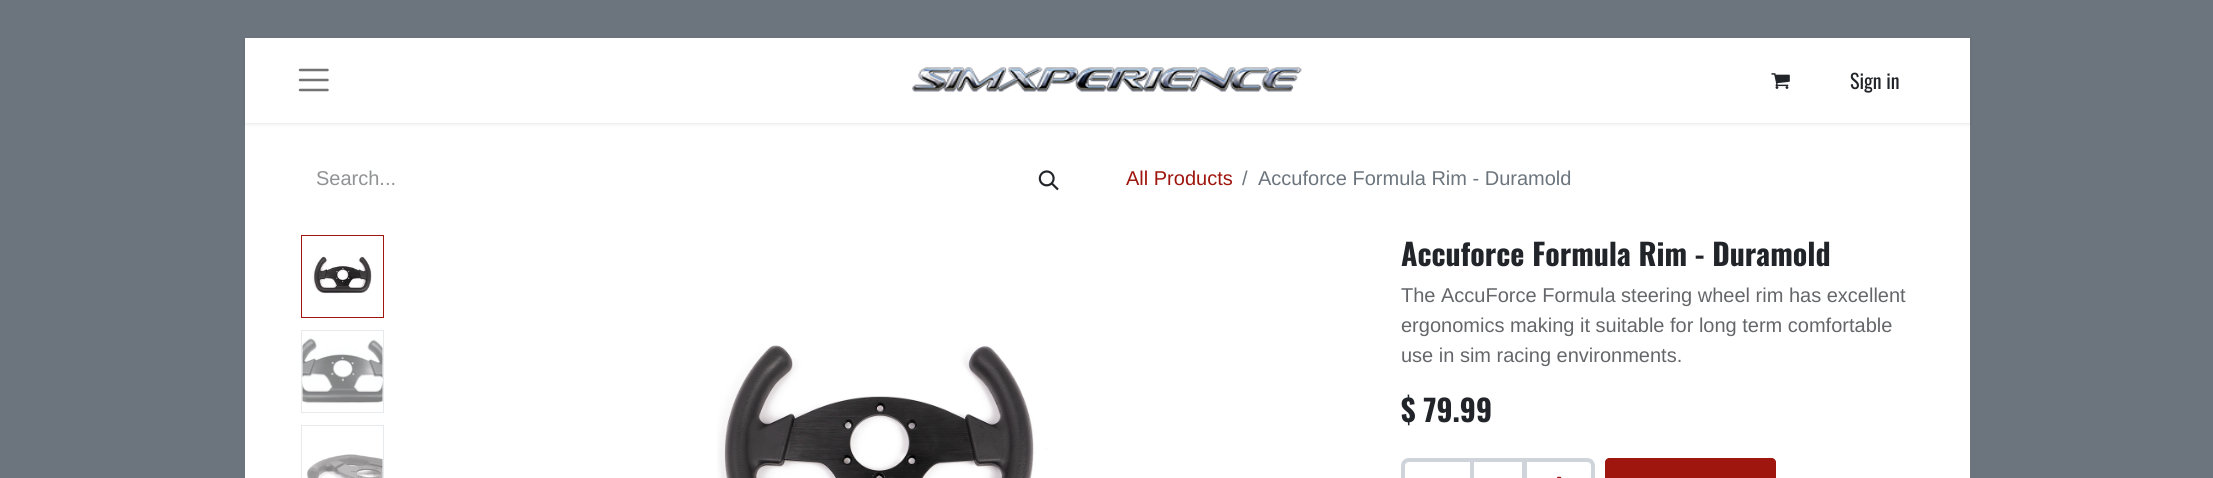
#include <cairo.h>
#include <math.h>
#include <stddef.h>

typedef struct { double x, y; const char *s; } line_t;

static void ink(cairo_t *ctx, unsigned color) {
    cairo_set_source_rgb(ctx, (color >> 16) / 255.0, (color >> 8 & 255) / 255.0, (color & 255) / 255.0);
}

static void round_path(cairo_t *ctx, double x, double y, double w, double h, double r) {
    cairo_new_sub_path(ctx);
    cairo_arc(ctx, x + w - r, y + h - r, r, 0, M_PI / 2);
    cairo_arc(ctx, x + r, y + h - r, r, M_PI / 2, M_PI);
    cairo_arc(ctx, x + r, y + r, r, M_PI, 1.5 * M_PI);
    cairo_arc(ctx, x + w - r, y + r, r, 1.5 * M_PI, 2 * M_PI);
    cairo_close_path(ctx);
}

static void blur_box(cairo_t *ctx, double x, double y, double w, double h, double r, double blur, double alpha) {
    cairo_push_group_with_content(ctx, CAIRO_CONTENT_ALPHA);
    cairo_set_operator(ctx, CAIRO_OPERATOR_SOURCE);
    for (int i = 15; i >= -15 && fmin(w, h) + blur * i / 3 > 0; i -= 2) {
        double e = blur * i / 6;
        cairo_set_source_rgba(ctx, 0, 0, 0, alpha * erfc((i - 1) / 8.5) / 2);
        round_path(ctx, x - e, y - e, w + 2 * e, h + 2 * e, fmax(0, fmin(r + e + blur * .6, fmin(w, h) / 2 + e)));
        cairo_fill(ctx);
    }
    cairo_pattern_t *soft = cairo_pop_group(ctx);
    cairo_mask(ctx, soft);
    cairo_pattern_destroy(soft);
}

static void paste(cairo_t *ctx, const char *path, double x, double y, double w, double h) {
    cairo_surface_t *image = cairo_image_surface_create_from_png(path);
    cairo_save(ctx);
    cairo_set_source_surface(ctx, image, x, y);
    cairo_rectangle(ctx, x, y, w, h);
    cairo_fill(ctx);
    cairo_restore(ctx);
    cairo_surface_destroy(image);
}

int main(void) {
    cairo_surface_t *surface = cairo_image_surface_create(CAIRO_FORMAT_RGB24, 2213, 478);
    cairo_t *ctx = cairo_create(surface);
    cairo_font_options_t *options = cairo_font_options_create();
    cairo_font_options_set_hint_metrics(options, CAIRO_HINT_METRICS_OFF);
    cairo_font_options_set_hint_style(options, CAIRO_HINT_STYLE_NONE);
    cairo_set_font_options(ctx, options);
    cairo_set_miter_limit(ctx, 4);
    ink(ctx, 0x6C757D);
    cairo_paint(ctx);
    ink(ctx, 0xFFFFFF);
    cairo_rectangle(ctx, 245, 123, 1725, 355);
    cairo_fill(ctx);
    ink(ctx, 0x000000);
    blur_box(ctx, 245, 39, 1725, 85, 0, 2, 0.1);
    ink(ctx, 0xFFFFFF);
    cairo_rectangle(ctx, 245, 38, 1725, 85);
    cairo_fill(ctx);
    cairo_new_path(ctx);
    cairo_move_to(ctx, 300, 70);
    cairo_line_to(ctx, 327.5, 70);
    cairo_move_to(ctx, 300, 80);
    cairo_line_to(ctx, 327.5, 80);
    cairo_move_to(ctx, 300, 90);
    cairo_line_to(ctx, 327.5, 90);
    ink(ctx, 0x737373);
    cairo_set_line_width(ctx, 2.5);
    cairo_set_line_cap(ctx, CAIRO_LINE_CAP_ROUND);
    cairo_stroke(ctx);
    paste(ctx, "media/1.png", 912, 67, 390, 25);
    paste(ctx, "media/2.png", 1771, 73, 19, 16);
    cairo_select_font_face(ctx, "Oswald", CAIRO_FONT_SLANT_NORMAL, CAIRO_FONT_WEIGHT_NORMAL);
    cairo_set_font_size(ctx, 20);
    ink(ctx, 0x212529);
    cairo_move_to(ctx, 1850, 89);
    cairo_show_text(ctx, "Sign in");
    cairo_select_font_face(ctx, "Liberation Sans", CAIRO_FONT_SLANT_NORMAL, CAIRO_FONT_WEIGHT_NORMAL);
    ink(ctx, 0x909294);
    cairo_move_to(ctx, 316, 185);
    cairo_show_text(ctx, "Search...");
    paste(ctx, "media/3.png", 1038, 170, 21, 21);
    ink(ctx, 0x9E160D);
    cairo_move_to(ctx, 1126, 185);
    cairo_show_text(ctx, "All Products");
    ink(ctx, 0x6C757D);
    cairo_move_to(ctx, 1242, 185);
    cairo_show_text(ctx, "/");
    cairo_move_to(ctx, 1258, 185);
    cairo_show_text(ctx, "Accuforce Formula Rim - Duramold");
    cairo_rectangle(ctx, 301.5, 235.5, 82, 82);
    ink(ctx, 0x9E160D);
    cairo_set_line_width(ctx, 1);
    cairo_set_line_cap(ctx, CAIRO_LINE_CAP_BUTT);
    cairo_stroke(ctx);
    paste(ctx, "media/4.png", 312, 256, 60, 38);
    cairo_rectangle(ctx, 301.5, 330.5, 82, 82);
    ink(ctx, 0xE7EAED);
    cairo_stroke(ctx);
    paste(ctx, "media/5.png", 302, 338, 81, 66);
    cairo_rectangle(ctx, 301.5, 425.5, 82, 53);
    cairo_stroke(ctx);
    paste(ctx, "media/6.png", 307, 454, 76, 24);
    paste(ctx, "media/7.png", 717, 345, 330, 133);
    cairo_select_font_face(ctx, "Oswald", CAIRO_FONT_SLANT_NORMAL, CAIRO_FONT_WEIGHT_BOLD);
    cairo_set_font_size(ctx, 30);
    ink(ctx, 0x212529);
    cairo_move_to(ctx, 1401, 266);
    cairo_show_text(ctx, "Accuforce Formula Rim - Duramold");
    cairo_select_font_face(ctx, "Liberation Sans", CAIRO_FONT_SLANT_NORMAL, CAIRO_FONT_WEIGHT_NORMAL);
    cairo_set_font_size(ctx, 20);
    ink(ctx, 0x646669);
    {
        static const line_t items[] = {
            {1401, 302, "The AccuForce Formula steering wheel rim has excellent"},
            {1401, 332, "ergonomics making it suitable for long term comfortable"},
            {1401, 362, "use in sim racing environments."},
        };
        for (size_t i = 0; i < sizeof items / sizeof *items; i++) {
            cairo_move_to(ctx, items[i].x, items[i].y);
            cairo_show_text(ctx, items[i].s);
        }
    }
    cairo_select_font_face(ctx, "Oswald", CAIRO_FONT_SLANT_NORMAL, CAIRO_FONT_WEIGHT_BOLD);
    cairo_set_font_size(ctx, 30);
    ink(ctx, 0x212529);
    cairo_move_to(ctx, 1401, 422);
    cairo_show_text(ctx, "$ 79.99");
    cairo_rectangle(ctx, 1472, 460, 52, 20);
    ink(ctx, 0xCED4DA);
    cairo_set_line_width(ctx, 4);
    cairo_stroke(ctx);
    cairo_new_path(ctx);
    cairo_move_to(ctx, 1409, 460);
    cairo_line_to(ctx, 1472, 460);
    cairo_line_to(ctx, 1472, 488);
    cairo_line_to(ctx, 1409, 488);
    cairo_curve_to(ctx, 1405.5, 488, 1403, 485.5, 1403, 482);
    cairo_line_to(ctx, 1403, 466);
    cairo_curve_to(ctx, 1403, 462.5, 1405.5, 460, 1409, 460);
    cairo_close_path(ctx);
    cairo_stroke(ctx);
    cairo_new_path(ctx);
    cairo_move_to(ctx, 1525, 460);
    cairo_line_to(ctx, 1587, 460);
    cairo_curve_to(ctx, 1590.5, 460, 1593, 462.5, 1593, 466);
    cairo_line_to(ctx, 1593, 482);
    cairo_curve_to(ctx, 1593, 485.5, 1590.5, 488, 1587, 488);
    cairo_line_to(ctx, 1525, 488);
    cairo_close_path(ctx);
    cairo_stroke(ctx);
    paste(ctx, "media/8.png", 1557, 476, 5, 2);
    ink(ctx, 0x9E160D);
    cairo_new_path(ctx);
    cairo_move_to(ctx, 1610, 458);
    cairo_line_to(ctx, 1771, 458);
    cairo_curve_to(ctx, 1774, 458, 1776, 460, 1776, 463);
    cairo_line_to(ctx, 1776, 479);
    cairo_line_to(ctx, 1605, 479);
    cairo_line_to(ctx, 1605, 463);
    cairo_curve_to(ctx, 1605, 460, 1607, 458, 1610, 458);
    cairo_close_path(ctx);
    cairo_fill(ctx);
    round_path(ctx, 1607, 460, 167, 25, 3);
    cairo_stroke(ctx);
    cairo_surface_write_to_png(surface, "image.png");
    cairo_font_options_destroy(options);
    cairo_destroy(ctx);
    cairo_surface_destroy(surface);
    return 0;
}
